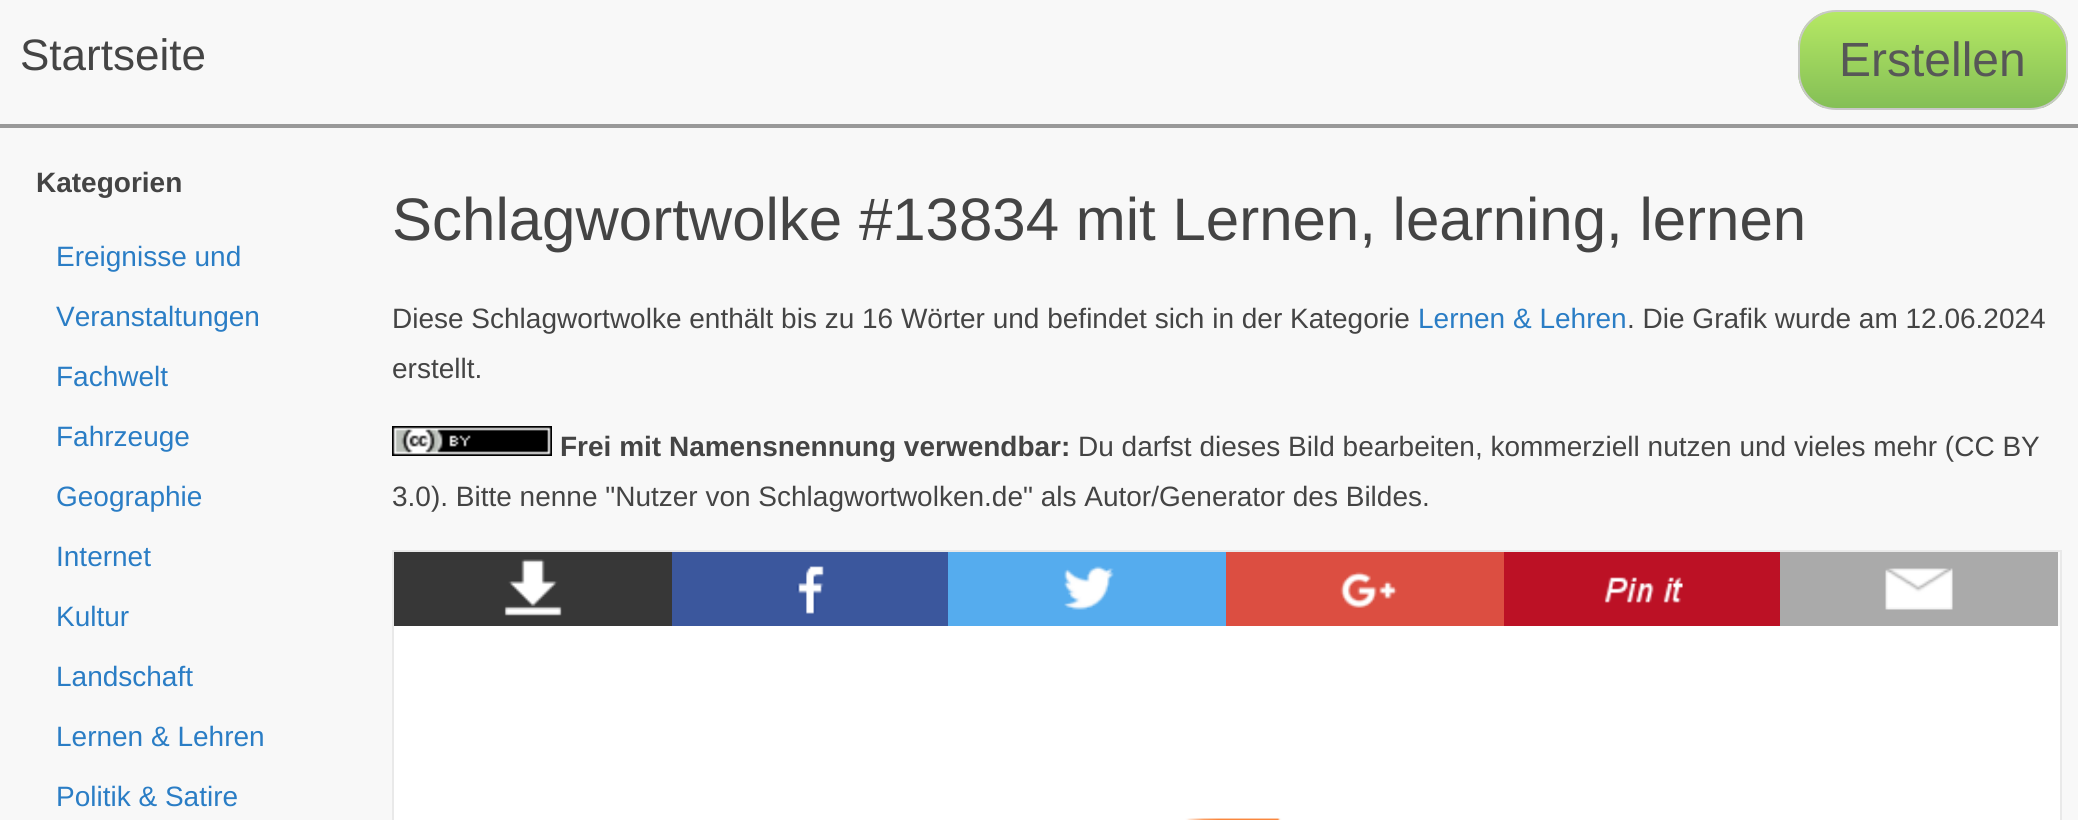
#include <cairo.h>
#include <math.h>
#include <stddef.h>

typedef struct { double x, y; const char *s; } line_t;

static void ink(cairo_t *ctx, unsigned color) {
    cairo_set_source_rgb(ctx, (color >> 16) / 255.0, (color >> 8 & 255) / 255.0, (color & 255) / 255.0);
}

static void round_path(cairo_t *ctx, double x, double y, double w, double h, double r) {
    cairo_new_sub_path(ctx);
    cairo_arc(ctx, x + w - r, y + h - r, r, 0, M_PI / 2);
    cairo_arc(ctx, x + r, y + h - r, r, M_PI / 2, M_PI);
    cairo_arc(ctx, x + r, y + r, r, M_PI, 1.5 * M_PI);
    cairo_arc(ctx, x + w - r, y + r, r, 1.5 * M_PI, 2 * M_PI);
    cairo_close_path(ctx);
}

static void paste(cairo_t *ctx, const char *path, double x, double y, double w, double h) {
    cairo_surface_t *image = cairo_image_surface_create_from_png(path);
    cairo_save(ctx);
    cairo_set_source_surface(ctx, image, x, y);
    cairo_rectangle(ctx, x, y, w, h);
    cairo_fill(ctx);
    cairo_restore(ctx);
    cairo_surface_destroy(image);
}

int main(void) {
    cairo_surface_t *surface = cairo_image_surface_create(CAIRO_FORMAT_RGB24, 2078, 820);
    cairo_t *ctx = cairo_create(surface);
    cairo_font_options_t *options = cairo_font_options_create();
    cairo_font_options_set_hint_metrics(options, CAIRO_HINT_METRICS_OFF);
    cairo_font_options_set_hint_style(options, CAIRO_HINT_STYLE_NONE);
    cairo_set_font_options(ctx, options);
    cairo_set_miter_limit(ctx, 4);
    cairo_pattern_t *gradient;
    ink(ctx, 0xF8F8F8);
    cairo_paint(ctx);
    ink(ctx, 0x999999);
    cairo_rectangle(ctx, 0, 124, 2078, 4);
    cairo_fill(ctx);
    cairo_select_font_face(ctx, "Liberation Sans", CAIRO_FONT_SLANT_NORMAL, CAIRO_FONT_WEIGHT_NORMAL);
    cairo_set_font_size(ctx, 44);
    ink(ctx, 0x444444);
    cairo_move_to(ctx, 20, 70);
    cairo_show_text(ctx, "Startseite");
    cairo_save(ctx);
    round_path(ctx, 1798, 10, 270, 100, 38);
    cairo_clip(ctx);
    gradient = cairo_pattern_create_linear(1933, 12, 1933, 108);
    cairo_pattern_add_color_stop_rgba(gradient, 0, 0.71, 0.91, 0.392, 1);
    cairo_pattern_add_color_stop_rgba(gradient, 1, 0.518, 0.749, 0.337, 1);
    cairo_set_source(ctx, gradient);
    cairo_pattern_destroy(gradient);
    cairo_rectangle(ctx, 1798, 12, 270, 96);
    cairo_fill(ctx);
    cairo_restore(ctx);
    round_path(ctx, 1799, 11, 268, 98, 37);
    ink(ctx, 0xC8C8C8);
    cairo_stroke(ctx);
    cairo_set_font_size(ctx, 48);
    ink(ctx, 0x575757);
    cairo_move_to(ctx, 1839, 76);
    cairo_show_text(ctx, "Erstellen");
    cairo_select_font_face(ctx, "Liberation Sans", CAIRO_FONT_SLANT_NORMAL, CAIRO_FONT_WEIGHT_BOLD);
    cairo_set_font_size(ctx, 28);
    ink(ctx, 0x444444);
    cairo_move_to(ctx, 36, 192);
    cairo_show_text(ctx, "Kategorien");
    cairo_select_font_face(ctx, "Liberation Sans", CAIRO_FONT_SLANT_NORMAL, CAIRO_FONT_WEIGHT_NORMAL);
    ink(ctx, 0x2A7DC5);
    {
        static const line_t items[] = {
            {56, 266, "Ereignisse und"},
            {56, 326, "Veranstaltungen"},
            {56, 386, "Fachwelt"},
            {56, 446, "Fahrzeuge"},
            {56, 506, "Geographie"},
            {56, 566, "Internet"},
            {56, 626, "Kultur"},
            {56, 686, "Landschaft"},
            {56, 746, "Lernen & Lehren"},
            {56, 806, "Politik & Satire"},
        };
        for (size_t i = 0; i < sizeof items / sizeof *items; i++) {
            cairo_move_to(ctx, items[i].x, items[i].y);
            cairo_show_text(ctx, items[i].s);
        }
    }
    cairo_set_font_size(ctx, 60);
    ink(ctx, 0x444444);
    cairo_move_to(ctx, 392, 240);
    cairo_show_text(ctx, "Schlagwortwolke #13834 mit Lernen, learning, lernen");
    cairo_set_font_size(ctx, 28);
    cairo_move_to(ctx, 392, 328);
    cairo_show_text(ctx, "Diese Schlagwortwolke enthält bis zu 16 Wörter und befindet sich in der Kategorie");
    ink(ctx, 0x2A7DC5);
    cairo_move_to(ctx, 1418, 328);
    cairo_show_text(ctx, "Lernen & Lehren");
    ink(ctx, 0x444444);
    cairo_move_to(ctx, 1627, 328);
    cairo_show_text(ctx, ". Die Grafik wurde am 12.06.2024");
    cairo_move_to(ctx, 392, 378);
    cairo_show_text(ctx, "erstellt.");
    paste(ctx, "media/1.png", 392, 426, 160, 30);
    cairo_select_font_face(ctx, "Liberation Sans", CAIRO_FONT_SLANT_NORMAL, CAIRO_FONT_WEIGHT_BOLD);
    cairo_move_to(ctx, 560, 456);
    cairo_show_text(ctx, "Frei mit Namensnennung verwendbar:");
    cairo_select_font_face(ctx, "Liberation Sans", CAIRO_FONT_SLANT_NORMAL, CAIRO_FONT_WEIGHT_NORMAL);
    cairo_move_to(ctx, 1078, 456);
    cairo_show_text(ctx, "Du darfst dieses Bild bearbeiten, kommerziell nutzen und vieles mehr (CC BY");
    cairo_move_to(ctx, 392, 506);
    cairo_show_text(ctx, "3.0). Bitte nenne \"Nutzer von Schlagwortwolken.de\" als Autor/Generator des Bildes.");
    cairo_rectangle(ctx, 393, 551, 1668, 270);
    ink(ctx, 0xE9E9E9);
    cairo_stroke(ctx);
    paste(ctx, "media/2.png", 394, 552, 278, 74);
    paste(ctx, "media/3.png", 672, 552, 276, 74);
    paste(ctx, "media/4.png", 948, 552, 278, 74);
    paste(ctx, "media/5.png", 1226, 552, 278, 74);
    paste(ctx, "media/6.png", 1504, 552, 276, 74);
    paste(ctx, "media/7.png", 1780, 552, 278, 74);
    paste(ctx, "media/8.png", 394, 626, 1666, 194);
    cairo_surface_write_to_png(surface, "image.png");
    cairo_font_options_destroy(options);
    cairo_destroy(ctx);
    cairo_surface_destroy(surface);
    return 0;
}
